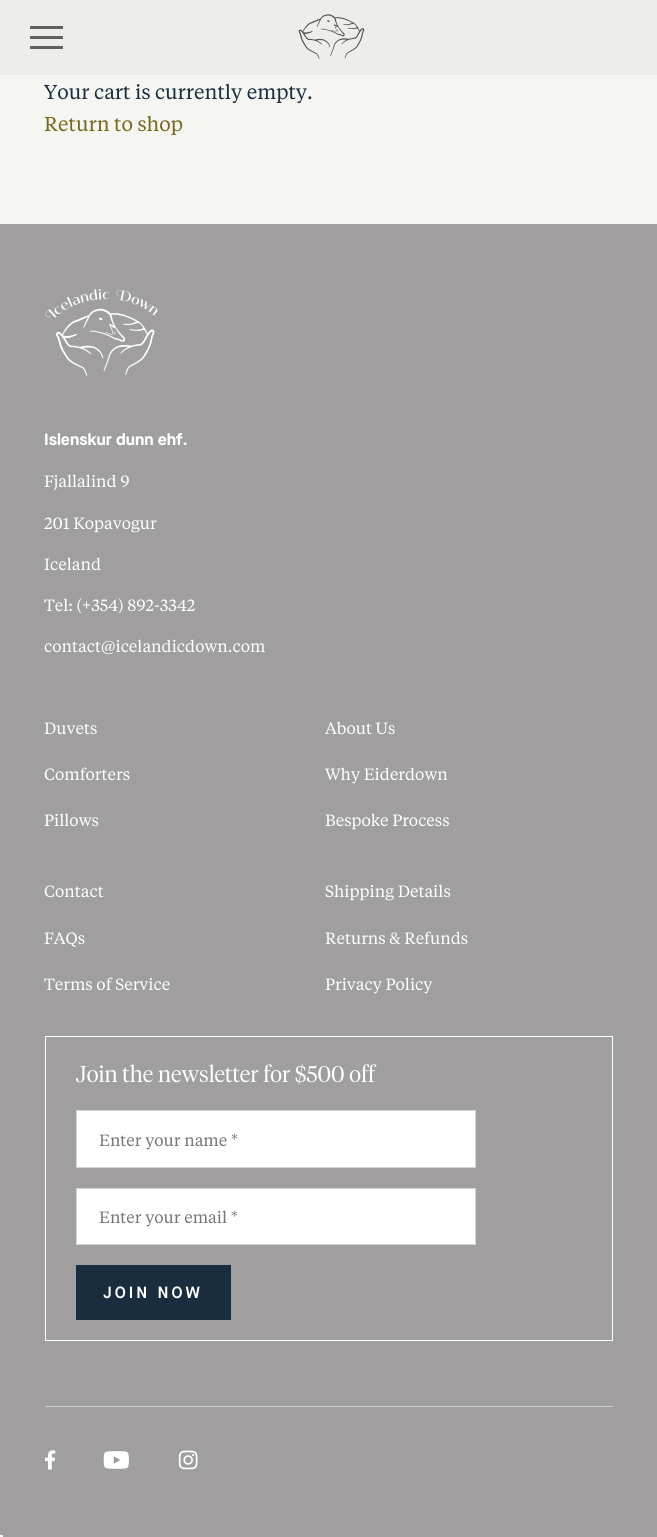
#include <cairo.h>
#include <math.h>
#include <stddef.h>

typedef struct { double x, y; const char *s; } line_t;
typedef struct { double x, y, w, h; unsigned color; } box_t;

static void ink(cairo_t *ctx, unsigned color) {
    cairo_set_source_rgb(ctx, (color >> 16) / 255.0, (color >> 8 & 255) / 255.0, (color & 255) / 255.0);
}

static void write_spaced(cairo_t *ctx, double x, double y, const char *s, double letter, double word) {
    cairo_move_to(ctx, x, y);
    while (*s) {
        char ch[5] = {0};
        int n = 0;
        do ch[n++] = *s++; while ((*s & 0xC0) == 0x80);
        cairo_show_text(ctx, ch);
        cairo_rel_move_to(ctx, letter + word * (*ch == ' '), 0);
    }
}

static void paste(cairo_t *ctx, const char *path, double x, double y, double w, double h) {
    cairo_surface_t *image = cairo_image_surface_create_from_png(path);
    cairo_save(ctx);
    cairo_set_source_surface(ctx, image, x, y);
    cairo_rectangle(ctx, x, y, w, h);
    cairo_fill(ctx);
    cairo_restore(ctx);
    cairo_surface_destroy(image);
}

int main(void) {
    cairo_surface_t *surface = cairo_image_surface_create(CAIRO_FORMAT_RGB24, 657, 1537);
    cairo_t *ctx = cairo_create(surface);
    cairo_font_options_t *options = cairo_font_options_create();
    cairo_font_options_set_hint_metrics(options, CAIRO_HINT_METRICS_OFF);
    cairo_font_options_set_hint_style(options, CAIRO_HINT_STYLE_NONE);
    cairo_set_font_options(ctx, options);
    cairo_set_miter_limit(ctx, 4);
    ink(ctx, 0xF5F5F2);
    cairo_paint(ctx);
    {
        static const box_t items[] = {
            {0, 0, 657, 75, 0xEDEDE9},
            {30, 36, 33, 3, 0x616161},
            {30, 26, 33, 3, 0x616161},
            {30, 46, 33, 3, 0x616161},
        };
        for (size_t i = 0; i < sizeof items / sizeof *items; i++) {
            ink(ctx, items[i].color);
            cairo_rectangle(ctx, items[i].x, items[i].y, items[i].w, items[i].h);
            cairo_fill(ctx);
        }
    }
    paste(ctx, "media/1.png", 298, 14, 67, 45);
    cairo_select_font_face(ctx, "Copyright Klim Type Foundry", CAIRO_FONT_SLANT_NORMAL, CAIRO_FONT_WEIGHT_NORMAL);
    cairo_set_font_size(ctx, 20);
    ink(ctx, 0x192D3E);
    cairo_move_to(ctx, 44, 99);
    cairo_show_text(ctx, "Your cart is currently empty.");
    ink(ctx, 0x77681B);
    cairo_move_to(ctx, 44, 131);
    cairo_show_text(ctx, "Return to shop");
    ink(ctx, 0xA09E9E);
    cairo_rectangle(ctx, 0, 224, 657, 1313);
    cairo_fill(ctx);
    paste(ctx, "media/2.png", 45, 289, 113, 87);
    cairo_select_font_face(ctx, "Maison Neue", CAIRO_FONT_SLANT_NORMAL, CAIRO_FONT_WEIGHT_BOLD);
    cairo_set_font_size(ctx, 16.25);
    ink(ctx, 0xFFFFFF);
    cairo_move_to(ctx, 44, 445);
    cairo_show_text(ctx, "Islenskur dunn ehf.");
    cairo_select_font_face(ctx, "Copyright Klim Type Foundry", CAIRO_FONT_SLANT_NORMAL, CAIRO_FONT_WEIGHT_NORMAL);
    {
        static const line_t items[] = {
            {44, 487, "Fjallalind 9"},
            {44, 529, "201 Kopavogur"},
            {44, 570, "Iceland"},
            {44, 611, "Tel: (+354) 892-3342"},
            {44, 652, "contact@icelandicdown.com"},
            {44, 734, "Duvets"},
            {44, 780, "Comforters"},
            {44, 826, "Pillows"},
            {325, 734, "About Us"},
            {325, 780, "Why Eiderdown"},
            {325, 826, "Bespoke Process"},
            {44, 897, "Contact"},
            {44, 944, "FAQs"},
            {44, 990, "Terms of Service"},
            {325, 897, "Shipping Details"},
            {325, 944, "Returns & Refunds"},
            {325, 990, "Privacy Policy"},
        };
        for (size_t i = 0; i < sizeof items / sizeof *items; i++) {
            cairo_move_to(ctx, items[i].x, items[i].y);
            cairo_show_text(ctx, items[i].s);
        }
    }
    cairo_rectangle(ctx, 45.5, 1036.5, 567, 304);
    cairo_set_line_width(ctx, 1);
    cairo_stroke(ctx);
    cairo_select_font_face(ctx, "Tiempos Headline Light", CAIRO_FONT_SLANT_NORMAL, CAIRO_FONT_WEIGHT_NORMAL);
    cairo_set_font_size(ctx, 22.6);
    cairo_move_to(ctx, 76, 1082);
    cairo_show_text(ctx, "Join the newsletter for $500 off");
    cairo_rectangle(ctx, 76.5, 1110.5, 399, 57);
    cairo_fill_preserve(ctx);
    ink(ctx, 0xD2D5D7);
    cairo_stroke(ctx);
    cairo_select_font_face(ctx, "Copyright Klim Type Foundry", CAIRO_FONT_SLANT_NORMAL, CAIRO_FONT_WEIGHT_NORMAL);
    cairo_set_font_size(ctx, 16.25);
    ink(ctx, 0x757575);
    cairo_move_to(ctx, 99, 1146);
    cairo_show_text(ctx, "Enter your name *");
    ink(ctx, 0xFFFFFF);
    cairo_rectangle(ctx, 76.5, 1188.5, 399, 56);
    cairo_fill_preserve(ctx);
    ink(ctx, 0xD2D5D7);
    cairo_stroke(ctx);
    ink(ctx, 0x757575);
    cairo_move_to(ctx, 99, 1223);
    cairo_show_text(ctx, "Enter your email *");
    ink(ctx, 0x192D3E);
    cairo_rectangle(ctx, 76, 1265, 155, 55);
    cairo_fill(ctx);
    cairo_select_font_face(ctx, "Maison Neue SemiBold", CAIRO_FONT_SLANT_NORMAL, CAIRO_FONT_WEIGHT_NORMAL);
    ink(ctx, 0xFFFFFF);
    write_spaced(ctx, 103, 1298, "JOIN NOW", 3, 0);
    ink(ctx, 0xCBCBCB);
    cairo_rectangle(ctx, 45, 1406, 568, 1);
    cairo_fill(ctx);
    paste(ctx, "media/3.png", 45, 1450, 11, 20);
    paste(ctx, "media/4.png", 103, 1451, 26, 18);
    paste(ctx, "media/5.png", 178, 1450, 20, 20);
    ink(ctx, 0xF5F5F5);
    cairo_rectangle(ctx, 0, 1535, 3, 2);
    cairo_fill(ctx);
    cairo_surface_write_to_png(surface, "image.png");
    cairo_font_options_destroy(options);
    cairo_destroy(ctx);
    cairo_surface_destroy(surface);
    return 0;
}
